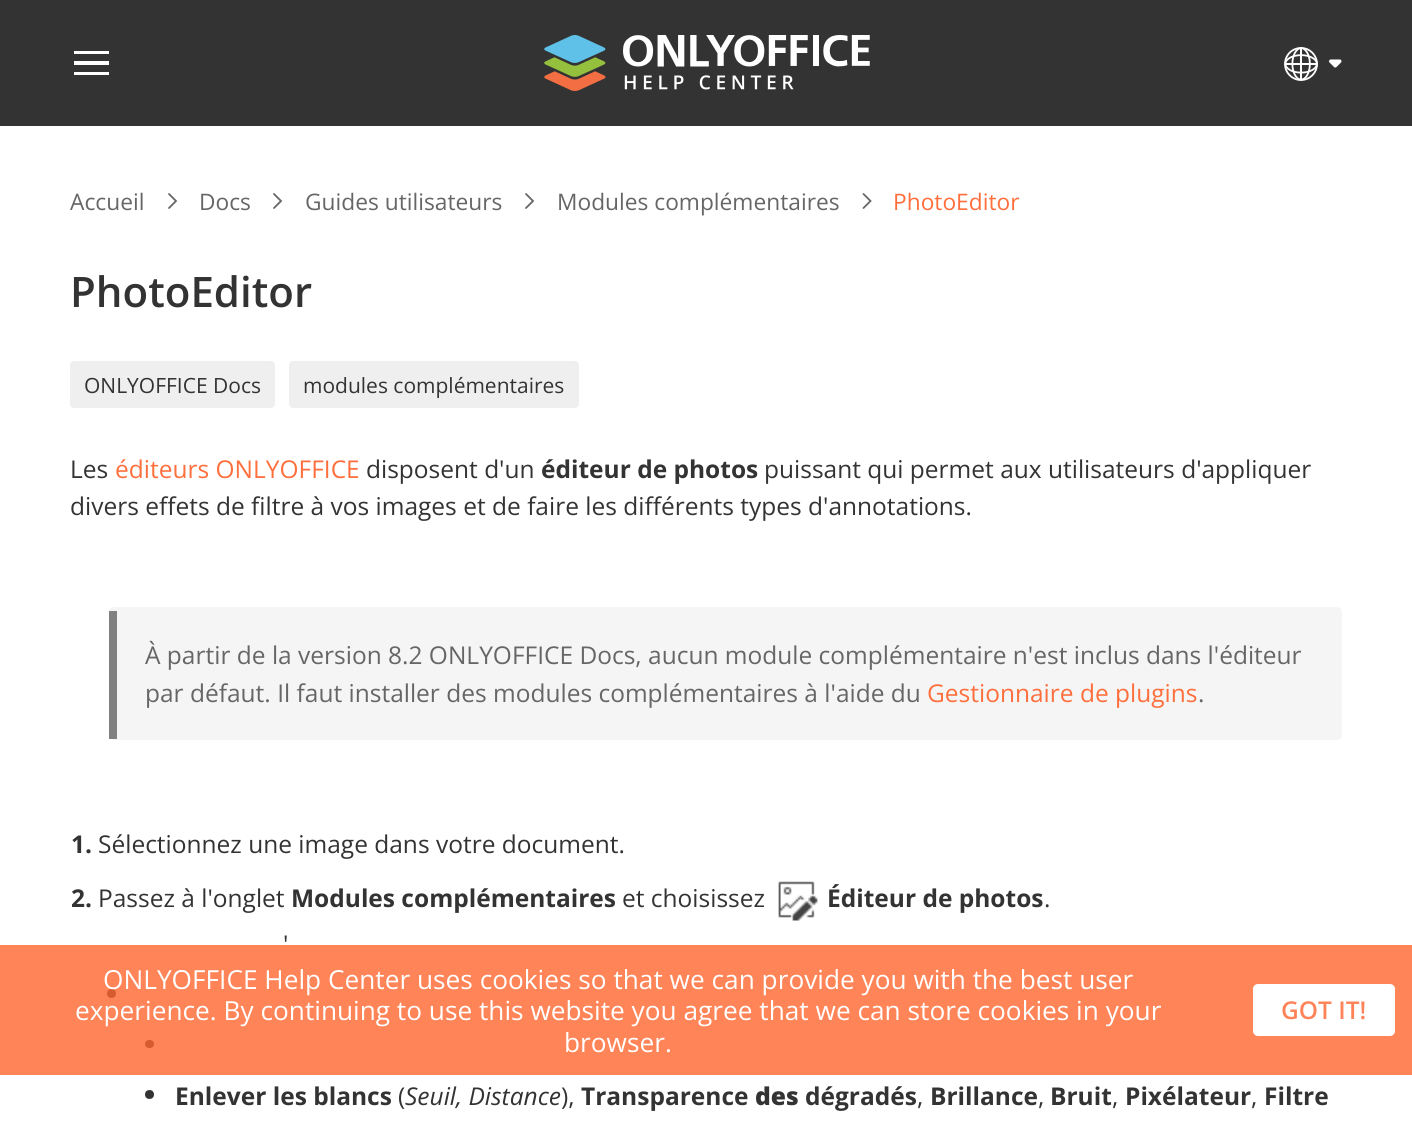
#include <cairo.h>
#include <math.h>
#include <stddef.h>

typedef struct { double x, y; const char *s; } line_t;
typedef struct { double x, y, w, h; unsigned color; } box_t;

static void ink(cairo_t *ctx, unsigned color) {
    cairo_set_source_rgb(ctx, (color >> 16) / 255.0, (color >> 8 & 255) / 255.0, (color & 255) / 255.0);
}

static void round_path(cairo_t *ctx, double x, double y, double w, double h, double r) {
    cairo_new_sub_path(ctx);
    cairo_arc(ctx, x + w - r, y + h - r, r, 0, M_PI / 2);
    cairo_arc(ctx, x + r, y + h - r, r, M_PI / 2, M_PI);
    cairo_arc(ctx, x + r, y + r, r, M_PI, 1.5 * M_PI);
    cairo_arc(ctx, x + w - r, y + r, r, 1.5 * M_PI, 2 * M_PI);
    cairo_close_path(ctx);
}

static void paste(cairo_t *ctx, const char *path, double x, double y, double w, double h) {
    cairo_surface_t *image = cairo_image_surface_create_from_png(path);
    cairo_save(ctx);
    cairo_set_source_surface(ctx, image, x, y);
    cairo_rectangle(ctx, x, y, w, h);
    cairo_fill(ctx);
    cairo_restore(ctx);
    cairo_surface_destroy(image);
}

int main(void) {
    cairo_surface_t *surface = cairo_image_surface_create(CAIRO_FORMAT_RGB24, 1412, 1126);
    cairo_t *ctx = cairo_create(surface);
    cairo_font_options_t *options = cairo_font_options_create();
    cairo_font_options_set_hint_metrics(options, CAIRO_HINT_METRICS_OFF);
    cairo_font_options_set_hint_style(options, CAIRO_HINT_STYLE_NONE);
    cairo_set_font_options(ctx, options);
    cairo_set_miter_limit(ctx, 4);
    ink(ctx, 0xFFFFFF);
    cairo_paint(ctx);
    {
        static const box_t items[] = {
            {0, 0, 1412, 126, 0x333333},
            {74, 51, 35, 3, 0xFFFFFF},
            {74, 61, 35, 4, 0xFFFFFF},
            {74, 72, 35, 3, 0xFFFFFF},
        };
        for (size_t i = 0; i < sizeof items / sizeof *items; i++) {
            ink(ctx, items[i].color);
            cairo_rectangle(ctx, items[i].x, items[i].y, items[i].w, items[i].h);
            cairo_fill(ctx);
        }
    }
    paste(ctx, "media/1.png", 544, 35, 326, 56);
    paste(ctx, "media/2.png", 1284, 47, 34, 34);
    paste(ctx, "media/3.png", 1329, 59, 13, 9);
    cairo_select_font_face(ctx, "Open Sans", CAIRO_FONT_SLANT_NORMAL, CAIRO_FONT_WEIGHT_NORMAL);
    cairo_set_font_size(ctx, 22.75);
    ink(ctx, 0x666666);
    cairo_move_to(ctx, 70, 210);
    cairo_show_text(ctx, "Accueil");
    cairo_new_path(ctx);
    cairo_move_to(ctx, 169, 208);
    cairo_line_to(ctx, 176, 201);
    cairo_line_to(ctx, 169, 194);
    cairo_set_line_width(ctx, 1.8);
    cairo_set_line_cap(ctx, CAIRO_LINE_CAP_ROUND);
    cairo_stroke(ctx);
    cairo_move_to(ctx, 199, 210);
    cairo_show_text(ctx, "Docs");
    cairo_new_path(ctx);
    cairo_move_to(ctx, 274, 208);
    cairo_line_to(ctx, 281, 201);
    cairo_line_to(ctx, 274, 194);
    cairo_stroke(ctx);
    cairo_move_to(ctx, 305, 210);
    cairo_show_text(ctx, "Guides utilisateurs");
    cairo_new_path(ctx);
    cairo_move_to(ctx, 526, 208);
    cairo_line_to(ctx, 533, 201);
    cairo_line_to(ctx, 526, 194);
    cairo_stroke(ctx);
    cairo_move_to(ctx, 557, 210);
    cairo_show_text(ctx, "Modules complémentaires");
    cairo_new_path(ctx);
    cairo_move_to(ctx, 863.5, 208);
    cairo_line_to(ctx, 870.5, 201);
    cairo_line_to(ctx, 863.5, 194);
    cairo_stroke(ctx);
    ink(ctx, 0xFF6F3D);
    cairo_move_to(ctx, 893, 210);
    cairo_show_text(ctx, "PhotoEditor");
    cairo_select_font_face(ctx, "Open Sans SemiBold", CAIRO_FONT_SLANT_NORMAL, CAIRO_FONT_WEIGHT_NORMAL);
    cairo_set_font_size(ctx, 42);
    ink(ctx, 0x333333);
    cairo_move_to(ctx, 70, 307);
    cairo_show_text(ctx, "PhotoEditor");
    ink(ctx, 0xEFEFEF);
    round_path(ctx, 70, 361, 205, 47, 4);
    cairo_fill(ctx);
    cairo_select_font_face(ctx, "Open Sans", CAIRO_FONT_SLANT_NORMAL, CAIRO_FONT_WEIGHT_NORMAL);
    cairo_set_font_size(ctx, 21);
    ink(ctx, 0x333333);
    cairo_move_to(ctx, 84, 393);
    cairo_show_text(ctx, "ONLYOFFICE Docs");
    ink(ctx, 0xEFEFEF);
    round_path(ctx, 289, 361, 290, 47, 4);
    cairo_fill(ctx);
    ink(ctx, 0x333333);
    cairo_move_to(ctx, 303, 393);
    cairo_show_text(ctx, "modules complémentaires");
    cairo_set_font_size(ctx, 24.5);
    cairo_move_to(ctx, 70, 478);
    cairo_show_text(ctx, "Les");
    ink(ctx, 0xFF6F3D);
    cairo_move_to(ctx, 115, 478);
    cairo_show_text(ctx, "éditeurs ONLYOFFICE");
    ink(ctx, 0x333333);
    cairo_move_to(ctx, 366, 478);
    cairo_show_text(ctx, "disposent d'un");
    cairo_select_font_face(ctx, "Open Sans", CAIRO_FONT_SLANT_NORMAL, CAIRO_FONT_WEIGHT_BOLD);
    cairo_move_to(ctx, 541, 478);
    cairo_show_text(ctx, "éditeur de photos");
    cairo_select_font_face(ctx, "Open Sans", CAIRO_FONT_SLANT_NORMAL, CAIRO_FONT_WEIGHT_NORMAL);
    cairo_move_to(ctx, 764, 478);
    cairo_show_text(ctx, "puissant qui permet aux utilisateurs d'appliquer");
    cairo_move_to(ctx, 70, 515);
    cairo_show_text(ctx, "divers effets de filtre à vos images et de faire les différents types d'annotations.");
    ink(ctx, 0xF5F5F5);
    round_path(ctx, 109, 607, 1233, 133, 5);
    cairo_fill(ctx);
    ink(ctx, 0x808080);
    cairo_rectangle(ctx, 109, 611, 8, 128);
    cairo_fill(ctx);
    ink(ctx, 0x666666);
    cairo_move_to(ctx, 145, 664);
    cairo_show_text(ctx, "À partir de la version 8.2 ONLYOFFICE Docs, aucun module complémentaire n'est inclus dans l'éditeur");
    cairo_move_to(ctx, 145, 702);
    cairo_show_text(ctx, "par défaut. Il faut installer des modules complémentaires à l'aide du");
    ink(ctx, 0xFF6F3D);
    cairo_move_to(ctx, 927, 702);
    cairo_show_text(ctx, "Gestionnaire de plugins");
    ink(ctx, 0x666666);
    cairo_move_to(ctx, 1198, 702);
    cairo_show_text(ctx, ".");
    cairo_select_font_face(ctx, "Open Sans", CAIRO_FONT_SLANT_NORMAL, CAIRO_FONT_WEIGHT_BOLD);
    ink(ctx, 0x333333);
    cairo_move_to(ctx, 71, 853);
    cairo_show_text(ctx, "1.");
    cairo_select_font_face(ctx, "Open Sans", CAIRO_FONT_SLANT_NORMAL, CAIRO_FONT_WEIGHT_NORMAL);
    cairo_move_to(ctx, 98, 853);
    cairo_show_text(ctx, "Sélectionnez une image dans votre document.");
    cairo_select_font_face(ctx, "Open Sans", CAIRO_FONT_SLANT_NORMAL, CAIRO_FONT_WEIGHT_BOLD);
    cairo_move_to(ctx, 71, 907);
    cairo_show_text(ctx, "2.");
    cairo_select_font_face(ctx, "Open Sans", CAIRO_FONT_SLANT_NORMAL, CAIRO_FONT_WEIGHT_NORMAL);
    cairo_move_to(ctx, 98, 907);
    cairo_show_text(ctx, "Passez à l'onglet");
    cairo_select_font_face(ctx, "Open Sans", CAIRO_FONT_SLANT_NORMAL, CAIRO_FONT_WEIGHT_BOLD);
    cairo_move_to(ctx, 291, 907);
    cairo_show_text(ctx, "Modules complémentaires");
    cairo_select_font_face(ctx, "Open Sans", CAIRO_FONT_SLANT_NORMAL, CAIRO_FONT_WEIGHT_NORMAL);
    cairo_move_to(ctx, 622, 907);
    cairo_show_text(ctx, "et choisissez");
    paste(ctx, "media/4.png", 778, 881, 40, 40);
    cairo_select_font_face(ctx, "Open Sans", CAIRO_FONT_SLANT_NORMAL, CAIRO_FONT_WEIGHT_BOLD);
    cairo_move_to(ctx, 827, 907);
    cairo_show_text(ctx, "Éditeur de photos");
    cairo_select_font_face(ctx, "Open Sans", CAIRO_FONT_SLANT_NORMAL, CAIRO_FONT_WEIGHT_NORMAL);
    cairo_move_to(ctx, 1044, 907);
    cairo_show_text(ctx, ".");
    cairo_move_to(ctx, 283, 953);
    cairo_show_text(ctx, "'");
    cairo_new_path(ctx);
    cairo_arc(ctx, 111.5, 993.5, 4.5, 0, 2 * M_PI);
    cairo_fill(ctx);
    round_path(ctx, 145, 1040, 9, 8, 4);
    cairo_fill(ctx);
    cairo_arc(ctx, 149.5, 1094.5, 4.5, 0, 2 * M_PI);
    cairo_fill(ctx);
    cairo_select_font_face(ctx, "Open Sans", CAIRO_FONT_SLANT_NORMAL, CAIRO_FONT_WEIGHT_BOLD);
    cairo_move_to(ctx, 175, 1105);
    cairo_show_text(ctx, "Enlever les blancs");
    cairo_select_font_face(ctx, "Open Sans", CAIRO_FONT_SLANT_NORMAL, CAIRO_FONT_WEIGHT_NORMAL);
    cairo_move_to(ctx, 398, 1105);
    cairo_show_text(ctx, "(");
    cairo_select_font_face(ctx, "Open Sans", CAIRO_FONT_SLANT_ITALIC, CAIRO_FONT_WEIGHT_NORMAL);
    cairo_move_to(ctx, 405, 1105);
    cairo_show_text(ctx, "Seuil, Distance");
    cairo_select_font_face(ctx, "Open Sans", CAIRO_FONT_SLANT_NORMAL, CAIRO_FONT_WEIGHT_NORMAL);
    cairo_move_to(ctx, 561, 1105);
    cairo_show_text(ctx, "),");
    cairo_select_font_face(ctx, "Open Sans", CAIRO_FONT_SLANT_NORMAL, CAIRO_FONT_WEIGHT_BOLD);
    cairo_move_to(ctx, 581, 1105);
    cairo_show_text(ctx, "Transparence");
    cairo_select_font_face(ctx, "Open Sans ExtraBold", CAIRO_FONT_SLANT_NORMAL, CAIRO_FONT_WEIGHT_NORMAL);
    cairo_move_to(ctx, 755, 1105);
    cairo_show_text(ctx, "des");
    cairo_select_font_face(ctx, "Open Sans", CAIRO_FONT_SLANT_NORMAL, CAIRO_FONT_WEIGHT_BOLD);
    {
        static const line_t items[] = {
            {805, 1105, "dégradés"},
            {930, 1105, "Brillance"},
            {1050, 1105, "Bruit"},
            {1125, 1105, "Pixélateur"},
            {1264, 1105, "Filtre"},
        };
        for (size_t i = 0; i < sizeof items / sizeof *items; i++) {
            cairo_move_to(ctx, items[i].x, items[i].y);
            cairo_show_text(ctx, items[i].s);
        }
    }
    cairo_select_font_face(ctx, "Open Sans", CAIRO_FONT_SLANT_NORMAL, CAIRO_FONT_WEIGHT_NORMAL);
    {
        static const line_t items[] = {
            {917, 1105, ","},
            {1038, 1105, ","},
            {1112, 1105, ","},
            {1251, 1105, ","},
        };
        for (size_t i = 0; i < sizeof items / sizeof *items; i++) {
            cairo_move_to(ctx, items[i].x, items[i].y);
            cairo_show_text(ctx, items[i].s);
        }
    }
    cairo_set_source_rgba(ctx, 1, 0.4, 0.18, 0.8);
    cairo_rectangle(ctx, 0, 945, 1412, 130);
    cairo_fill(ctx);
    cairo_set_font_size(ctx, 26.25);
    ink(ctx, 0xFFFFFF);
    {
        static const line_t items[] = {
            {103, 989, "ONLYOFFICE Help Center uses cookies so that we can provide you with the best user"},
            {75, 1020, "experience. By continuing to use this website you agree that we can store cookies in your"},
            {564, 1052, "browser."},
        };
        for (size_t i = 0; i < sizeof items / sizeof *items; i++) {
            cairo_move_to(ctx, items[i].x, items[i].y);
            cairo_show_text(ctx, items[i].s);
        }
    }
    round_path(ctx, 1253, 984, 142, 52, 5);
    cairo_fill(ctx);
    cairo_select_font_face(ctx, "Open Sans SemiBold", CAIRO_FONT_SLANT_NORMAL, CAIRO_FONT_WEIGHT_NORMAL);
    cairo_set_font_size(ctx, 24.5);
    ink(ctx, 0xFF8358);
    cairo_move_to(ctx, 1281, 1019);
    cairo_show_text(ctx, "GOT IT!");
    cairo_surface_write_to_png(surface, "image.png");
    cairo_font_options_destroy(options);
    cairo_destroy(ctx);
    cairo_surface_destroy(surface);
    return 0;
}
